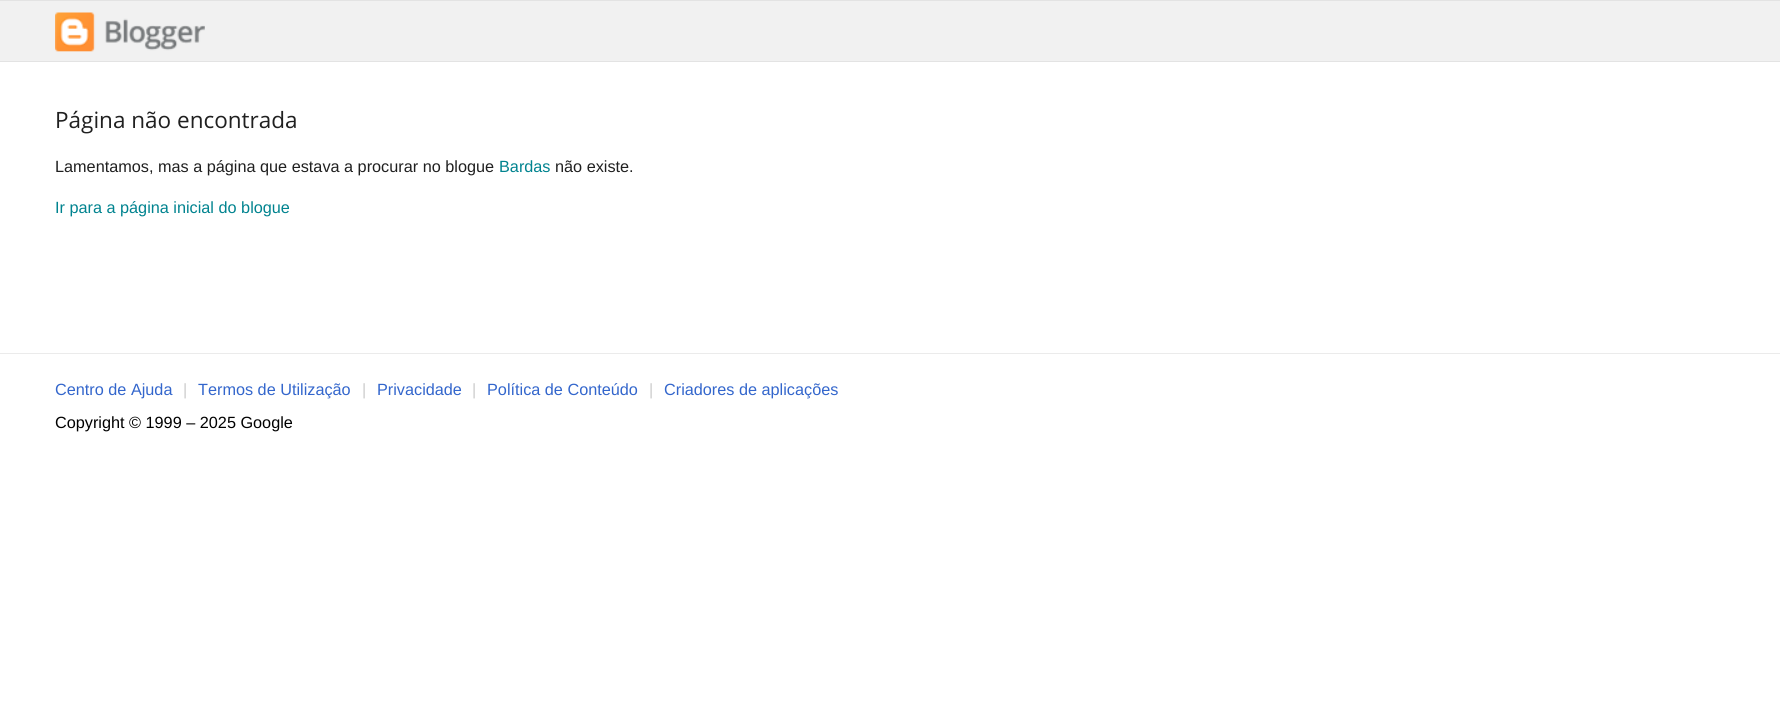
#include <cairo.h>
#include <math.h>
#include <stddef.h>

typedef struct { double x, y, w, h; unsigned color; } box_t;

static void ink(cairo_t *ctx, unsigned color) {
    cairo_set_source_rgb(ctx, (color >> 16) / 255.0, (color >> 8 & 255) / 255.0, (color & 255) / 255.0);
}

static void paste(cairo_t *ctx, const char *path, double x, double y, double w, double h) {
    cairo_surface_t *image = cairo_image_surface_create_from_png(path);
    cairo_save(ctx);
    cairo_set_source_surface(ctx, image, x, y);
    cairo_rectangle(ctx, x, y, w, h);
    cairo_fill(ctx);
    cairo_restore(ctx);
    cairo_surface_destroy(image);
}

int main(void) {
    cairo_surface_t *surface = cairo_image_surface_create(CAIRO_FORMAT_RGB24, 1780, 715);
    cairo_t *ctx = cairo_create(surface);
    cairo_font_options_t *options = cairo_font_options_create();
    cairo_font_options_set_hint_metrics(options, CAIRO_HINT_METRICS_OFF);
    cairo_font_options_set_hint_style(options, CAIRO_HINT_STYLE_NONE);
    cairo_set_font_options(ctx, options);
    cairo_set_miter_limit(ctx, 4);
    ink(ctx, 0xFFFFFF);
    cairo_paint(ctx);
    {
        static const box_t items[] = {
            {0, 1, 1780, 60, 0xF1F1F1},
            {0, 0, 1780, 1, 0xE3E3E3},
            {0, 61, 1780, 1, 0xE3E3E3},
        };
        for (size_t i = 0; i < sizeof items / sizeof *items; i++) {
            ink(ctx, items[i].color);
            cairo_rectangle(ctx, items[i].x, items[i].y, items[i].w, items[i].h);
            cairo_fill(ctx);
        }
    }
    paste(ctx, "media/1.png", 55, 12, 150, 40);
    cairo_select_font_face(ctx, "Open Sans", CAIRO_FONT_SLANT_NORMAL, CAIRO_FONT_WEIGHT_NORMAL);
    cairo_set_font_size(ctx, 22.5);
    ink(ctx, 0x202020);
    cairo_move_to(ctx, 55, 128);
    cairo_show_text(ctx, "Página não encontrada");
    cairo_select_font_face(ctx, "Liberation Sans", CAIRO_FONT_SLANT_NORMAL, CAIRO_FONT_WEIGHT_NORMAL);
    cairo_set_font_size(ctx, 16.25);
    cairo_move_to(ctx, 55, 172);
    cairo_show_text(ctx, "Lamentamos, mas a página que estava a procurar no blogue");
    ink(ctx, 0x00838F);
    cairo_move_to(ctx, 499, 172);
    cairo_show_text(ctx, "Bardas");
    ink(ctx, 0x202020);
    cairo_move_to(ctx, 555, 172);
    cairo_show_text(ctx, "não existe.");
    ink(ctx, 0x00838F);
    cairo_move_to(ctx, 55, 213);
    cairo_show_text(ctx, "Ir para a página inicial do blogue");
    ink(ctx, 0xEBEBEB);
    cairo_rectangle(ctx, 0, 353, 1780, 1);
    cairo_fill(ctx);
    ink(ctx, 0x3366CC);
    cairo_move_to(ctx, 55, 395);
    cairo_show_text(ctx, "Centro de Ajuda");
    ink(ctx, 0xCCCCCC);
    cairo_move_to(ctx, 183, 395);
    cairo_show_text(ctx, "|");
    ink(ctx, 0x3366CC);
    cairo_move_to(ctx, 198, 395);
    cairo_show_text(ctx, "Termos de Utilização");
    ink(ctx, 0xCCCCCC);
    cairo_move_to(ctx, 362, 395);
    cairo_show_text(ctx, "|");
    ink(ctx, 0x3366CC);
    cairo_move_to(ctx, 377, 395);
    cairo_show_text(ctx, "Privacidade");
    ink(ctx, 0xCCCCCC);
    cairo_move_to(ctx, 472, 395);
    cairo_show_text(ctx, "|");
    ink(ctx, 0x3366CC);
    cairo_move_to(ctx, 487, 395);
    cairo_show_text(ctx, "Política de Conteúdo");
    ink(ctx, 0xCCCCCC);
    cairo_move_to(ctx, 649, 395);
    cairo_show_text(ctx, "|");
    ink(ctx, 0x3366CC);
    cairo_move_to(ctx, 664, 395);
    cairo_show_text(ctx, "Criadores de aplicações");
    ink(ctx, 0x000000);
    cairo_move_to(ctx, 55, 428);
    cairo_show_text(ctx, "Copyright © 1999 – 2025 Google");
    cairo_surface_write_to_png(surface, "image.png");
    cairo_font_options_destroy(options);
    cairo_destroy(ctx);
    cairo_surface_destroy(surface);
    return 0;
}
